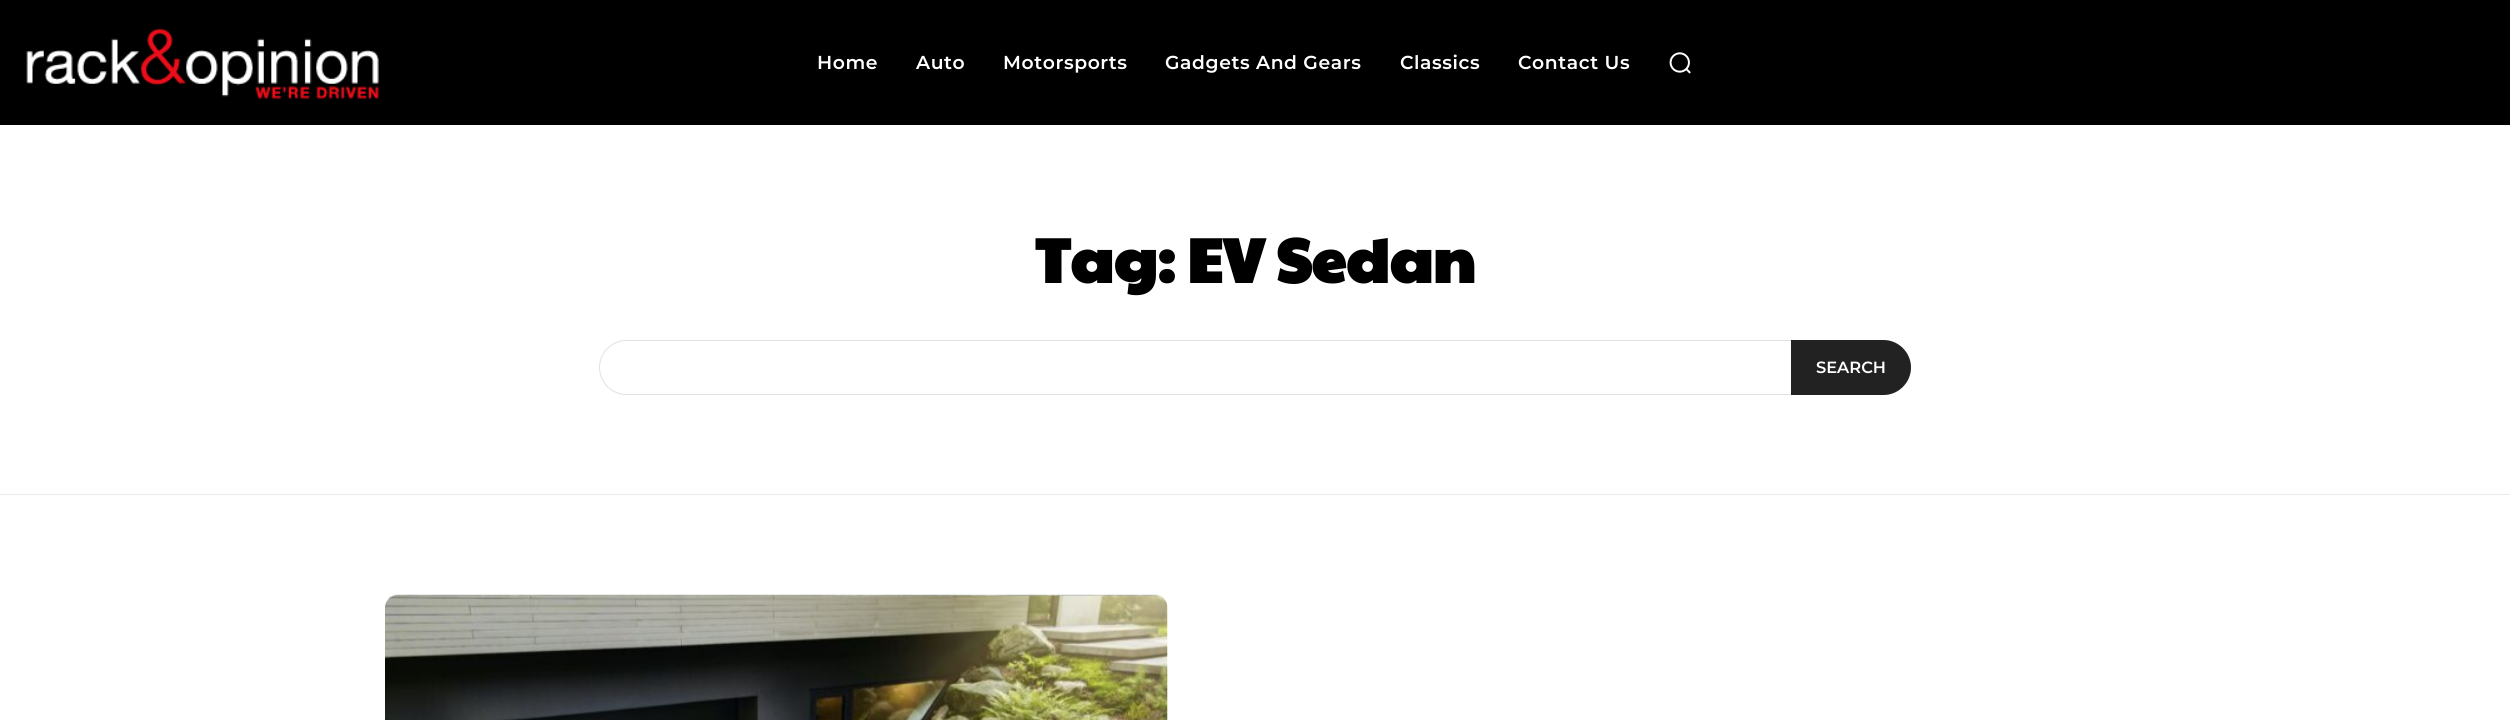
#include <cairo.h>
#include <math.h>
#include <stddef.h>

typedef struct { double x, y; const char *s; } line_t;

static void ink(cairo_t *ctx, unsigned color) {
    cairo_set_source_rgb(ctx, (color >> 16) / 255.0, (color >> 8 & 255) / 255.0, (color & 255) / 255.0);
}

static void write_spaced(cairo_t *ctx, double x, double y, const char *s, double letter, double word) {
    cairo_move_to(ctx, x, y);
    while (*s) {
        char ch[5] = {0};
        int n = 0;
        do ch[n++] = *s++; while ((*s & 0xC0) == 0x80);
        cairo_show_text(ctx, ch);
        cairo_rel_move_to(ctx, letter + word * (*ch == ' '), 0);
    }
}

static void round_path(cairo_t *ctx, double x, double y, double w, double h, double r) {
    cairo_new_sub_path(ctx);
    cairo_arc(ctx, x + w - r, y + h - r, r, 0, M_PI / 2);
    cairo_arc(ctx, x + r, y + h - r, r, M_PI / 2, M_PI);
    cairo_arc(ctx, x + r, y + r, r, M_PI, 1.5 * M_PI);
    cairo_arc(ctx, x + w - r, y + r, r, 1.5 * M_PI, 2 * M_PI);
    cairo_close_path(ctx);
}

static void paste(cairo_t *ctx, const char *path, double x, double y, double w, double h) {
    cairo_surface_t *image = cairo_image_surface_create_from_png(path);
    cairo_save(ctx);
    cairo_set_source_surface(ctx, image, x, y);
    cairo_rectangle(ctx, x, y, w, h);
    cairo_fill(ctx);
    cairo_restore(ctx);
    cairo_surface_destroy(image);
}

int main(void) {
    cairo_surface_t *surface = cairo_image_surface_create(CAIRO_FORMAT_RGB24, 2510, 720);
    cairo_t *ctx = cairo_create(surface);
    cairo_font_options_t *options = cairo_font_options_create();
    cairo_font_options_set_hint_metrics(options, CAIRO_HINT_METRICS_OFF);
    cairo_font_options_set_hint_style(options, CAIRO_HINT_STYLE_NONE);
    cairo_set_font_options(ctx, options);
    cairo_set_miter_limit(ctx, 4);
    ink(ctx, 0xFFFFFF);
    cairo_paint(ctx);
    ink(ctx, 0x000000);
    cairo_rectangle(ctx, 0, 0, 2510, 125);
    cairo_fill(ctx);
    paste(ctx, "media/1.png", 26, 28, 353, 71);
    cairo_select_font_face(ctx, "Montserrat SemiBold", CAIRO_FONT_SLANT_NORMAL, CAIRO_FONT_WEIGHT_NORMAL);
    cairo_set_font_size(ctx, 18.75);
    ink(ctx, 0xFFFFFF);
    {
        static const line_t items[] = {
            {817, 69, "Home"},
            {916, 69, "Auto"},
            {1003, 69, "Motorsports"},
            {1165, 69, "Gadgets And Gears"},
            {1400, 69, "Classics"},
            {1518, 69, "Contact Us"},
        };
        for (size_t i = 0; i < sizeof items / sizeof *items; i++) {
            write_spaced(ctx, items[i].x, items[i].y, items[i].s, 0.6, 0);
        }
    }
    paste(ctx, "media/2.png", 1669, 52, 22, 22);
    cairo_select_font_face(ctx, "Paytone One", CAIRO_FONT_SLANT_NORMAL, CAIRO_FONT_WEIGHT_BOLD);
    cairo_set_font_size(ctx, 62.5);
    ink(ctx, 0x000000);
    cairo_move_to(ctx, 1035, 283);
    cairo_show_text(ctx, "Tag: EV Sedan");
    round_path(ctx, 599.5, 340.5, 1311, 54, 27);
    ink(ctx, 0xE1E1E1);
    cairo_set_line_width(ctx, 1);
    cairo_stroke(ctx);
    ink(ctx, 0x222222);
    cairo_new_path(ctx);
    cairo_move_to(ctx, 1791, 340);
    cairo_line_to(ctx, 1883.5, 340);
    cairo_curve_to(ctx, 1898.5, 340, 1911, 352.5, 1911, 367.5);
    cairo_curve_to(ctx, 1911, 382.5, 1898.5, 395, 1883.5, 395);
    cairo_line_to(ctx, 1791, 395);
    cairo_close_path(ctx);
    cairo_fill(ctx);
    cairo_select_font_face(ctx, "Montserrat SemiBold", CAIRO_FONT_SLANT_NORMAL, CAIRO_FONT_WEIGHT_NORMAL);
    cairo_set_font_size(ctx, 16.25);
    ink(ctx, 0xFFFFFF);
    cairo_move_to(ctx, 1816, 373);
    cairo_show_text(ctx, "SEARCH");
    ink(ctx, 0xEAEAEA);
    cairo_rectangle(ctx, 0, 494, 2510, 1);
    cairo_fill(ctx);
    paste(ctx, "media/3.png", 385, 594, 783, 126);
    cairo_surface_write_to_png(surface, "image.png");
    cairo_font_options_destroy(options);
    cairo_destroy(ctx);
    cairo_surface_destroy(surface);
    return 0;
}
